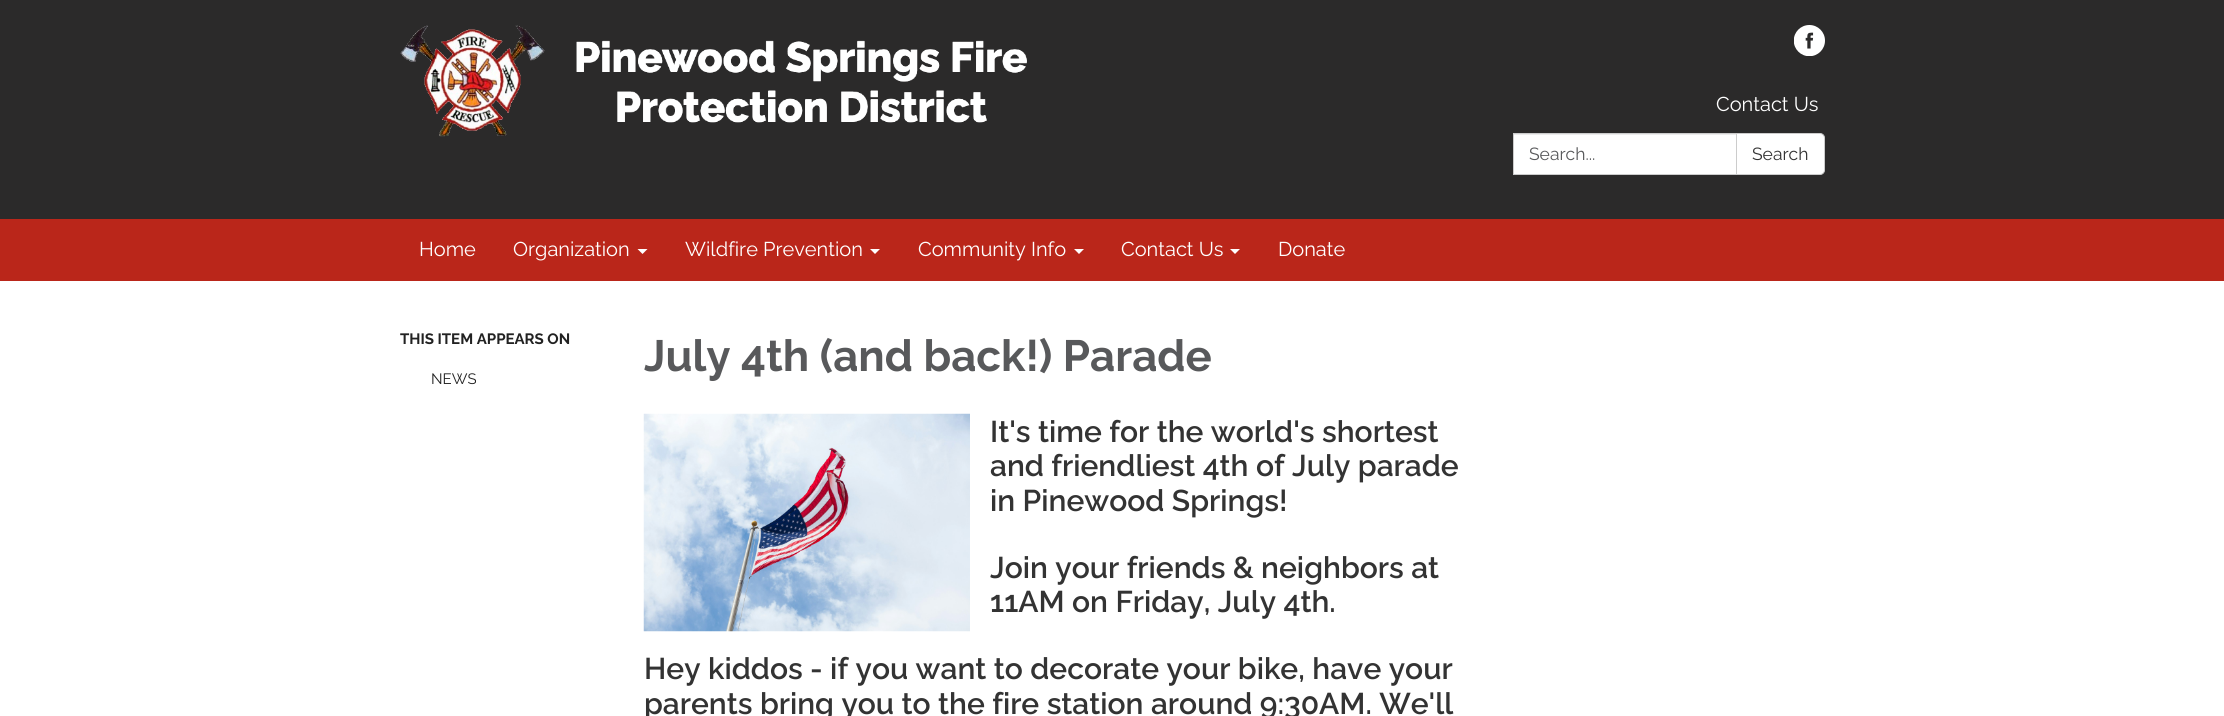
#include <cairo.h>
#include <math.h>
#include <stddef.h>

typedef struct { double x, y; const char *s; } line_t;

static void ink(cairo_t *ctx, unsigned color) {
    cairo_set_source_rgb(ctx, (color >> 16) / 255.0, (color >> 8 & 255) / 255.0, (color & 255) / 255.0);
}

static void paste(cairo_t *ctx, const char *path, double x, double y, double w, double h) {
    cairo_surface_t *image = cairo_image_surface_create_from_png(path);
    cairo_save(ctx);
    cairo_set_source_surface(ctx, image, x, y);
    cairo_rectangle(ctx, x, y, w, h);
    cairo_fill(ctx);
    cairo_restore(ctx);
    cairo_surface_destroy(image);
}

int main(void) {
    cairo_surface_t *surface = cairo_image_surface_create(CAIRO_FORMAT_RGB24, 2224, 716);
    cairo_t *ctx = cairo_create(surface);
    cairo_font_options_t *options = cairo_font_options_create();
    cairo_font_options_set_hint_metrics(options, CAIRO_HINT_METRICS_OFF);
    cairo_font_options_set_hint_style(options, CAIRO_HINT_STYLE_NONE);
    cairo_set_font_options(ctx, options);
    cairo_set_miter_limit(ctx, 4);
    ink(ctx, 0xBA261A);
    cairo_paint(ctx);
    ink(ctx, 0x2B2A2A);
    cairo_rectangle(ctx, 0, 0, 2224, 219);
    cairo_fill(ctx);
    paste(ctx, "media/1.png", 400, 25, 627, 112);
    paste(ctx, "media/2.png", 1794, 25, 31, 31);
    cairo_select_font_face(ctx, "Raleway", CAIRO_FONT_SLANT_NORMAL, CAIRO_FONT_WEIGHT_NORMAL);
    cairo_set_font_size(ctx, 20);
    ink(ctx, 0xFFFFFF);
    cairo_move_to(ctx, 1716, 111);
    cairo_show_text(ctx, "Contact Us");
    cairo_rectangle(ctx, 1514, 135, 222, 39);
    cairo_fill(ctx);
    ink(ctx, 0xECECEC);
    cairo_rectangle(ctx, 1514, 134, 222, 1);
    cairo_fill(ctx);
    cairo_rectangle(ctx, 1513.5, 133.5, 224, 41);
    ink(ctx, 0xCCCCCC);
    cairo_set_line_width(ctx, 1);
    cairo_stroke(ctx);
    cairo_set_font_size(ctx, 17.5);
    ink(ctx, 0x58595B);
    cairo_move_to(ctx, 1529, 160);
    cairo_show_text(ctx, "Search...");
    ink(ctx, 0xFFFFFF);
    cairo_new_path(ctx);
    cairo_move_to(ctx, 1736.5, 133.5);
    cairo_line_to(ctx, 1820, 133.5);
    cairo_curve_to(ctx, 1822.5, 133.5, 1824.5, 135.5, 1824.5, 138);
    cairo_line_to(ctx, 1824.5, 170);
    cairo_curve_to(ctx, 1824.5, 172.5, 1822.5, 174.5, 1820, 174.5);
    cairo_line_to(ctx, 1736.5, 174.5);
    cairo_close_path(ctx);
    cairo_fill_preserve(ctx);
    ink(ctx, 0xCCCCCC);
    cairo_stroke(ctx);
    ink(ctx, 0x333333);
    cairo_move_to(ctx, 1752, 160);
    cairo_show_text(ctx, "Search");
    cairo_set_font_size(ctx, 20);
    ink(ctx, 0xFFFFFF);
    cairo_move_to(ctx, 419, 256);
    cairo_show_text(ctx, "Home");
    cairo_move_to(ctx, 513, 256);
    cairo_show_text(ctx, "Organization");
    cairo_new_path(ctx);
    cairo_move_to(ctx, 637.5, 249);
    cairo_line_to(ctx, 647.5, 249);
    cairo_line_to(ctx, 642.5, 254);
    cairo_close_path(ctx);
    cairo_fill(ctx);
    cairo_move_to(ctx, 685, 256);
    cairo_show_text(ctx, "Wildfire Prevention");
    cairo_new_path(ctx);
    cairo_move_to(ctx, 870, 249);
    cairo_line_to(ctx, 880, 249);
    cairo_line_to(ctx, 875, 254);
    cairo_close_path(ctx);
    cairo_fill(ctx);
    cairo_move_to(ctx, 918, 256);
    cairo_show_text(ctx, "Community Info");
    cairo_new_path(ctx);
    cairo_move_to(ctx, 1074, 249);
    cairo_line_to(ctx, 1084, 249);
    cairo_line_to(ctx, 1079, 254);
    cairo_close_path(ctx);
    cairo_fill(ctx);
    cairo_move_to(ctx, 1121, 256);
    cairo_show_text(ctx, "Contact Us");
    cairo_new_path(ctx);
    cairo_move_to(ctx, 1230, 249);
    cairo_line_to(ctx, 1240, 249);
    cairo_line_to(ctx, 1235, 254);
    cairo_close_path(ctx);
    cairo_fill(ctx);
    cairo_move_to(ctx, 1278, 256);
    cairo_show_text(ctx, "Donate");
    cairo_rectangle(ctx, 0, 281, 2224, 435);
    cairo_fill(ctx);
    cairo_select_font_face(ctx, "Raleway", CAIRO_FONT_SLANT_NORMAL, CAIRO_FONT_WEIGHT_BOLD);
    cairo_set_font_size(ctx, 15);
    ink(ctx, 0x222222);
    cairo_move_to(ctx, 400, 344);
    cairo_show_text(ctx, "THIS ITEM APPEARS ON");
    cairo_select_font_face(ctx, "Raleway", CAIRO_FONT_SLANT_NORMAL, CAIRO_FONT_WEIGHT_NORMAL);
    cairo_move_to(ctx, 431, 384);
    cairo_show_text(ctx, "NEWS");
    cairo_select_font_face(ctx, "Raleway", CAIRO_FONT_SLANT_NORMAL, CAIRO_FONT_WEIGHT_BOLD);
    cairo_set_font_size(ctx, 43.75);
    ink(ctx, 0x58595B);
    cairo_move_to(ctx, 644, 371);
    cairo_show_text(ctx, "July 4th (and back!) Parade");
    paste(ctx, "media/3.png", 643, 413, 327, 219);
    cairo_select_font_face(ctx, "Raleway SemiBold", CAIRO_FONT_SLANT_NORMAL, CAIRO_FONT_WEIGHT_NORMAL);
    cairo_set_font_size(ctx, 30);
    ink(ctx, 0x333333);
    {
        static const line_t items[] = {
            {990, 442, "It's time for the world's shortest"},
            {990, 476, "and friendliest 4th of July parade"},
            {990, 511, "in Pinewood Springs!"},
            {990, 578, "Join your friends & neighbors at"},
            {990, 612, "11AM on Friday, July 4th."},
            {644, 679, "Hey kiddos - if you want to decorate your bike, have your"},
            {644, 714, "parents bring you to the fire station around 9:30AM. We'll"},
        };
        for (size_t i = 0; i < sizeof items / sizeof *items; i++) {
            cairo_move_to(ctx, items[i].x, items[i].y);
            cairo_show_text(ctx, items[i].s);
        }
    }
    cairo_surface_write_to_png(surface, "image.png");
    cairo_font_options_destroy(options);
    cairo_destroy(ctx);
    cairo_surface_destroy(surface);
    return 0;
}
